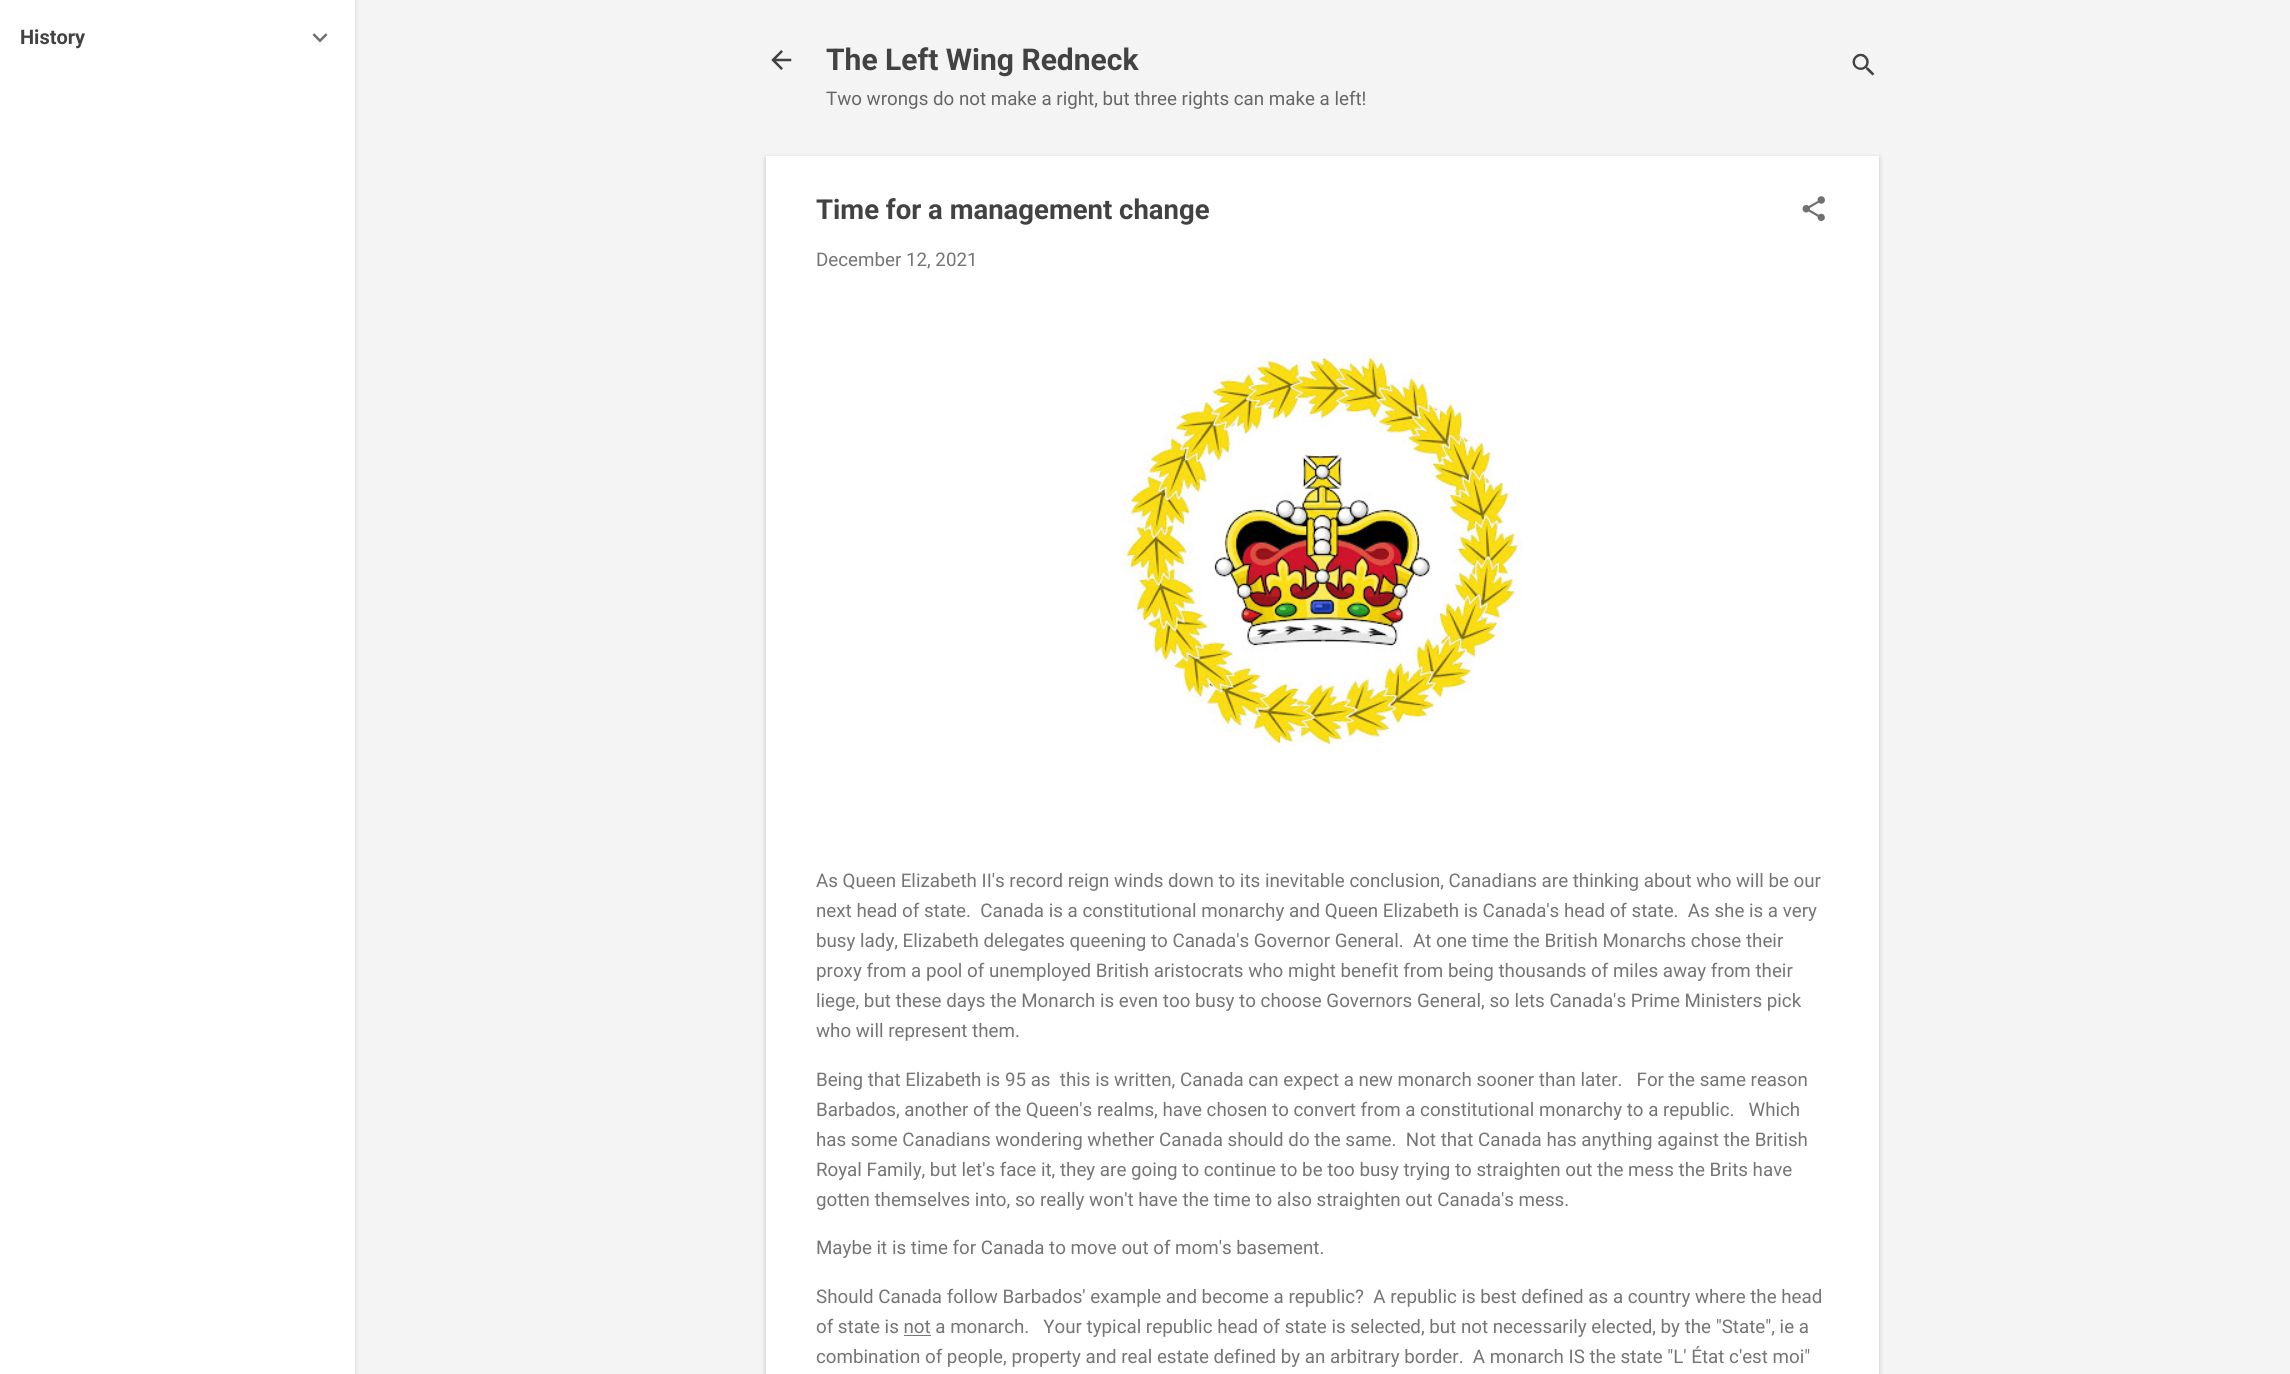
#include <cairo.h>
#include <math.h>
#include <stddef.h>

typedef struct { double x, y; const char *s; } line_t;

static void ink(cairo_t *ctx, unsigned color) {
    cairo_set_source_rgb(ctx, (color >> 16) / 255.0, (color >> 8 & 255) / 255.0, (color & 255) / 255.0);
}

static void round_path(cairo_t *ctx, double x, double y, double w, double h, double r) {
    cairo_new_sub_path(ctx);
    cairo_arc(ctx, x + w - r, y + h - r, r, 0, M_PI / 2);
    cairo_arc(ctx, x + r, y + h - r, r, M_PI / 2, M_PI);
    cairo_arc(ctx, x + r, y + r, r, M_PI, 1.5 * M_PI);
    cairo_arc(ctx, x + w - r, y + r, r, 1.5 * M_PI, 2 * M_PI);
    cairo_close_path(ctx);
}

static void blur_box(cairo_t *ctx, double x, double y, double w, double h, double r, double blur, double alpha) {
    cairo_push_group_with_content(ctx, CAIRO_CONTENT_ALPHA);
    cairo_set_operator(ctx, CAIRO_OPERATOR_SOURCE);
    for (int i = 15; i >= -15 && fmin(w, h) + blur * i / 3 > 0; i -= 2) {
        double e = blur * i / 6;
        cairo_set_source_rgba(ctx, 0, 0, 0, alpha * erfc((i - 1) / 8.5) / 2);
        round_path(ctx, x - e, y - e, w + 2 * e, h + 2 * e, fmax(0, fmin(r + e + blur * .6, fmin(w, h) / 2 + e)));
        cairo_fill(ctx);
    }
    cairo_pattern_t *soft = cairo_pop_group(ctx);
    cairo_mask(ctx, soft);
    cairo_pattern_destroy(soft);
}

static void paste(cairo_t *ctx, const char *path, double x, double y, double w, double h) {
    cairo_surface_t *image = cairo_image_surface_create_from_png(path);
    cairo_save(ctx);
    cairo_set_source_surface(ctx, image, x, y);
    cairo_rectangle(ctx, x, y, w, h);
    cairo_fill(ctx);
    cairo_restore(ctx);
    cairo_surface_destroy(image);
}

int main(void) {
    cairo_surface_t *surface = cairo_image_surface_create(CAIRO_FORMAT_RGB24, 2290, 1374);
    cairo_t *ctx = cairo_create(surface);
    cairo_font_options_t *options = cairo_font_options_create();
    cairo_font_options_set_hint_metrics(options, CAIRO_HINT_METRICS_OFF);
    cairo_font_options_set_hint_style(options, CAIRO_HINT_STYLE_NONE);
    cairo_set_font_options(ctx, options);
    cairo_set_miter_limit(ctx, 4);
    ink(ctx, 0xF4F4F4);
    cairo_paint(ctx);
    ink(ctx, 0x000000);
    blur_box(ctx, 1, 1, 355, 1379, 0, 2, 0.1);
    ink(ctx, 0xFFFFFF);
    cairo_rectangle(ctx, 0, 0, 355, 1374);
    cairo_fill(ctx);
    cairo_select_font_face(ctx, "Roboto", CAIRO_FONT_SLANT_NORMAL, CAIRO_FONT_WEIGHT_BOLD);
    cairo_set_font_size(ctx, 20);
    ink(ctx, 0x424242);
    cairo_move_to(ctx, 20, 44);
    cairo_show_text(ctx, "History");
    paste(ctx, "media/1.png", 312, 33, 16, 10);
    paste(ctx, "media/2.png", 771, 50, 21, 20);
    cairo_set_font_size(ctx, 30);
    cairo_move_to(ctx, 826, 70);
    cairo_show_text(ctx, "The Left Wing Redneck");
    cairo_select_font_face(ctx, "Roboto", CAIRO_FONT_SLANT_NORMAL, CAIRO_FONT_WEIGHT_NORMAL);
    cairo_set_font_size(ctx, 18.75);
    ink(ctx, 0x666666);
    cairo_move_to(ctx, 826, 105);
    cairo_show_text(ctx, "Two wrongs do not make a right, but three rights can make a left!");
    paste(ctx, "media/3.png", 1852, 53, 23, 23);
    ink(ctx, 0x3C4043);
    blur_box(ctx, 766, 158, 1113, 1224, 0, 2.5, 0.3);
    ink(ctx, 0xFFFFFF);
    cairo_rectangle(ctx, 766, 156, 1113, 1218);
    cairo_fill(ctx);
    cairo_select_font_face(ctx, "Roboto", CAIRO_FONT_SLANT_NORMAL, CAIRO_FONT_WEIGHT_BOLD);
    cairo_set_font_size(ctx, 27.5);
    ink(ctx, 0x424242);
    cairo_move_to(ctx, 816, 219);
    cairo_show_text(ctx, "Time for a management change");
    paste(ctx, "media/4.png", 1802, 196, 23, 26);
    cairo_select_font_face(ctx, "Roboto", CAIRO_FONT_SLANT_NORMAL, CAIRO_FONT_WEIGHT_NORMAL);
    cairo_set_font_size(ctx, 18.75);
    ink(ctx, 0x757575);
    cairo_move_to(ctx, 816, 266);
    cairo_show_text(ctx, "December 12, 2021");
    paste(ctx, "media/5.png", 1122, 352, 401, 397);
    {
        static const line_t items[] = {
            {816, 887, "As Queen Elizabeth II's record reign winds down to its inevitable conclusion, Canadians are thinking about who will be our"},
            {816, 917, "next head of state.  Canada is a constitutional monarchy and Queen Elizabeth is Canada's head of state.  As she is a very"},
            {816, 947, "busy lady, Elizabeth delegates queening to Canada's Governor General.  At one time the British Monarchs chose their"},
            {816, 977, "proxy from a pool of unemployed British aristocrats who might benefit from being thousands of miles away from their"},
            {816, 1007, "liege, but these days the Monarch is even too busy to choose Governors General, so lets Canada's Prime Ministers pick"},
            {816, 1037, "who will represent them."},
            {816, 1086, "Being that Elizabeth is 95 as  this is written, Canada can expect a new monarch sooner than later.   For the same reason"},
            {816, 1116, "Barbados, another of the Queen's realms, have chosen to convert from a constitutional monarchy to a republic.   Which"},
            {816, 1146, "has some Canadians wondering whether Canada should do the same.  Not that Canada has anything against the British"},
            {816, 1176, "Royal Family, but let's face it, they are going to continue to be too busy trying to straighten out the mess the Brits have"},
            {816, 1206, "gotten themselves into, so really won't have the time to also straighten out Canada's mess."},
            {816, 1254, "Maybe it is time for Canada to move out of mom's basement."},
            {816, 1303, "Should Canada follow Barbados' example and become a republic?  A republic is best defined as a country where the head"},
            {816, 1333, "of state is not a monarch.   Your typical republic head of state is selected, but not necessarily elected, by the \"State\", ie a"},
        };
        for (size_t i = 0; i < sizeof items / sizeof *items; i++) {
            cairo_move_to(ctx, items[i].x, items[i].y);
            cairo_show_text(ctx, items[i].s);
        }
    }
    cairo_rectangle(ctx, 904, 1335, 27, 1);
    cairo_fill(ctx);
    cairo_move_to(ctx, 816, 1363);
    cairo_show_text(ctx, "combination of people, property and real estate defined by an arbitrary border.  A monarch IS the state \"L' État c'est moi\"");
    cairo_surface_write_to_png(surface, "image.png");
    cairo_font_options_destroy(options);
    cairo_destroy(ctx);
    cairo_surface_destroy(surface);
    return 0;
}
